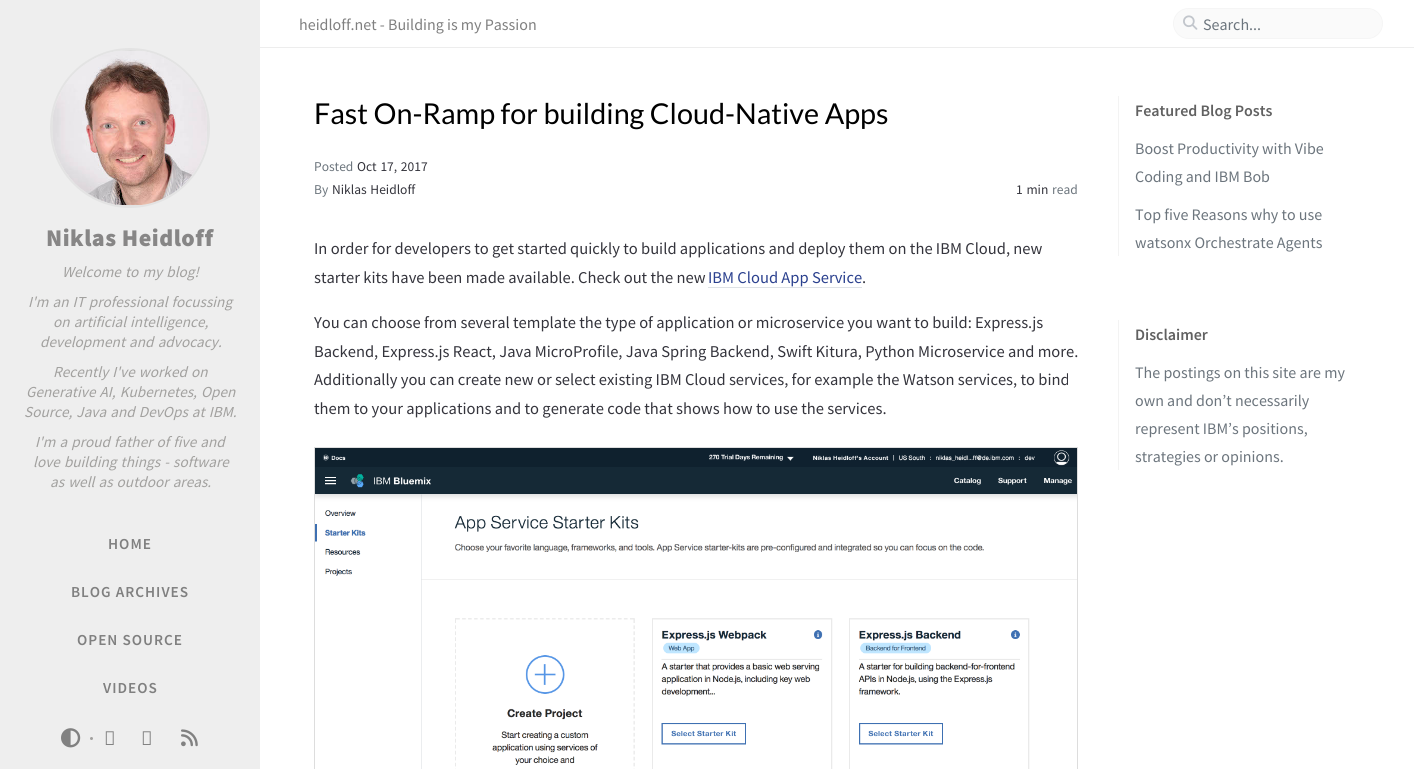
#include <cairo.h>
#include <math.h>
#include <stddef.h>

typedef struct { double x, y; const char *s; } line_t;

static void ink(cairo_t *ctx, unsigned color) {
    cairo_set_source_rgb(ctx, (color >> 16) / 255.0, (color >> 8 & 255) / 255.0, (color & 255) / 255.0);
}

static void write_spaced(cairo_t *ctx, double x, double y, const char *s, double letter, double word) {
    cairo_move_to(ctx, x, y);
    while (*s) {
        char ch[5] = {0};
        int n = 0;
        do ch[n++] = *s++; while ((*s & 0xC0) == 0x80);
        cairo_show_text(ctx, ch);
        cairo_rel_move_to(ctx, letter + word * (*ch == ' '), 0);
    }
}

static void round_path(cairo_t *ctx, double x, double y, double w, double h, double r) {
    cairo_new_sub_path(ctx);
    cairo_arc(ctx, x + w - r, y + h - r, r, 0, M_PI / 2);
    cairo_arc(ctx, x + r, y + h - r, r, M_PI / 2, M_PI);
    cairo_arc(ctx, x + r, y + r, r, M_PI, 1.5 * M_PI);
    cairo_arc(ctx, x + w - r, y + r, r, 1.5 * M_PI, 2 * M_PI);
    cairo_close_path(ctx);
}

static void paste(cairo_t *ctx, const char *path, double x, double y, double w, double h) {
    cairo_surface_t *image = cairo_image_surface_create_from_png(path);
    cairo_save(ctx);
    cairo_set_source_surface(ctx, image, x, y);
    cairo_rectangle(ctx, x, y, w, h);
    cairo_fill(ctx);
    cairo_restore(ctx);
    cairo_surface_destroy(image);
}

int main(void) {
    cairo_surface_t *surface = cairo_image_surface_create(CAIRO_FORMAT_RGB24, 1414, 769);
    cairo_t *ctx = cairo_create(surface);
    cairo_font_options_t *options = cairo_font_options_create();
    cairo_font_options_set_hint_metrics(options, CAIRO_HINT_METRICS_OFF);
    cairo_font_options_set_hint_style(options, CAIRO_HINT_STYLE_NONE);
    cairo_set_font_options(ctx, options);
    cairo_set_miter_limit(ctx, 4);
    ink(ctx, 0xFFFFFF);
    cairo_paint(ctx);
    ink(ctx, 0xEDEDED);
    cairo_rectangle(ctx, 260, 47, 1154, 1);
    cairo_fill(ctx);
    cairo_select_font_face(ctx, "Source Sans Pro", CAIRO_FONT_SLANT_NORMAL, CAIRO_FONT_WEIGHT_NORMAL);
    cairo_set_font_size(ctx, 16);
    ink(ctx, 0x808080);
    cairo_move_to(ctx, 299, 30);
    cairo_show_text(ctx, "heidloff.net - Building is my Passion");
    ink(ctx, 0xFAFAFA);
    round_path(ctx, 1173.5, 8.5, 209, 30, 15);
    cairo_fill_preserve(ctx);
    ink(ctx, 0xF5F5F5);
    cairo_set_line_width(ctx, 1);
    cairo_stroke(ctx);
    paste(ctx, "media/1.png", 1183, 15, 15, 15);
    ink(ctx, 0x6C757D);
    cairo_move_to(ctx, 1203, 30);
    cairo_show_text(ctx, "Search...");
    ink(ctx, 0xEEEEEE);
    cairo_rectangle(ctx, 0, 0, 260, 769);
    cairo_fill(ctx);
    cairo_arc(ctx, 130, 128, 79, 0, 2 * M_PI);
    ink(ctx, 0xE3E3E3);
    cairo_set_line_width(ctx, 2);
    cairo_stroke(ctx);
    ink(ctx, 0xDDDDDD);
    cairo_set_fill_rule(ctx, CAIRO_FILL_RULE_EVEN_ODD);
    cairo_new_path(ctx);
    cairo_move_to(ctx, 130, 50);
    cairo_line_to(ctx, 117, 51);
    cairo_line_to(ctx, 143, 51);
    cairo_close_path(ctx);
    cairo_move_to(ctx, 207, 115);
    cairo_curve_to(ctx, 208, 124, 208, 132, 207, 141);
    cairo_close_path(ctx);
    cairo_move_to(ctx, 143, 205);
    cairo_curve_to(ctx, 134, 206, 126, 206, 117, 205);
    cairo_close_path(ctx);
    cairo_move_to(ctx, 53, 141);
    cairo_curve_to(ctx, 52, 132, 52, 124, 53, 115);
    cairo_close_path(ctx);
    cairo_fill(ctx);
    paste(ctx, "media/2.png", 53, 51, 154, 154);
    cairo_select_font_face(ctx, "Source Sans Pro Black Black", CAIRO_FONT_SLANT_NORMAL, CAIRO_FONT_WEIGHT_NORMAL);
    cairo_set_font_size(ctx, 24);
    ink(ctx, 0x878686);
    write_spaced(ctx, 46, 246, "Niklas Heidloff", 0.5, 0);
    cairo_select_font_face(ctx, "Source Sans Pro", CAIRO_FONT_SLANT_ITALIC, CAIRO_FONT_WEIGHT_NORMAL);
    cairo_set_font_size(ctx, 15.25);
    ink(ctx, 0xA2A19F);
    {
        static const line_t items[] = {
            {62, 277, "Welcome to my blog!"},
            {28, 307, "I'm an IT professional focussing"},
            {53, 327, "on artificial intelligence,"},
            {40, 347, "development and advocacy."},
            {53, 377, "Recently I've worked on"},
            {26, 397, "Generative AI, Kubernetes, Open"},
            {24, 417, "Source, Java and DevOps at IBM."},
            {35, 447, "I'm a proud father of five and"},
            {33, 467, "love building things - software"},
            {50, 487, "as well as outdoor areas."},
        };
        for (size_t i = 0; i < sizeof items / sizeof *items; i++) {
            write_spaced(ctx, items[i].x, items[i].y, items[i].s, 0, 1);
        }
    }
    cairo_select_font_face(ctx, "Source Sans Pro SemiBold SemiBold", CAIRO_FONT_SLANT_NORMAL, CAIRO_FONT_WEIGHT_NORMAL);
    ink(ctx, 0x808080);
    {
        static const line_t items[] = {
            {108, 549, "HOME"},
            {71, 597, "BLOG ARCHIVES"},
            {77, 645, "OPEN SOURCE"},
            {103, 693, "VIDEOS"},
        };
        for (size_t i = 0; i < sizeof items / sizeof *items; i++) {
            write_spaced(ctx, items[i].x, items[i].y, items[i].s, 1, 0);
        }
    }
    paste(ctx, "media/3.png", 61, 728, 20, 20);
    ink(ctx, 0xA2A19F);
    cairo_arc(ctx, 91.5, 738.5, 1.5, 0, 2 * M_PI);
    cairo_fill(ctx);
    paste(ctx, "media/4.png", 105, 731, 9, 14);
    paste(ctx, "media/4.png", 142, 731, 9, 14);
    paste(ctx, "media/5.png", 181, 729, 17, 18);
    cairo_select_font_face(ctx, "Lato", CAIRO_FONT_SLANT_NORMAL, CAIRO_FONT_WEIGHT_NORMAL);
    cairo_set_font_size(ctx, 28.75);
    ink(ctx, 0x000000);
    cairo_move_to(ctx, 314, 124);
    cairo_show_text(ctx, "Fast On-Ramp for building Cloud-Native Apps");
    cairo_select_font_face(ctx, "Source Sans Pro", CAIRO_FONT_SLANT_NORMAL, CAIRO_FONT_WEIGHT_NORMAL);
    cairo_set_font_size(ctx, 13.5);
    ink(ctx, 0x6C757D);
    cairo_move_to(ctx, 314, 171);
    cairo_show_text(ctx, "Posted");
    ink(ctx, 0x34343C);
    write_spaced(ctx, 357, 171, "Oct 17, 2017", 0, 1);
    ink(ctx, 0x6C757D);
    cairo_move_to(ctx, 314, 194);
    cairo_show_text(ctx, "By");
    ink(ctx, 0x34343C);
    write_spaced(ctx, 332, 194, "Niklas Heidloff", 0, 1);
    write_spaced(ctx, 1016, 194, "1 min", 0, 1);
    ink(ctx, 0x6C757D);
    cairo_move_to(ctx, 1052, 194);
    cairo_show_text(ctx, "read");
    cairo_set_font_size(ctx, 16.5);
    ink(ctx, 0x34343C);
    cairo_move_to(ctx, 314, 254);
    cairo_show_text(ctx, "In order for developers to get started quickly to build applications and deploy them on the IBM Cloud, new");
    cairo_move_to(ctx, 314, 283);
    cairo_show_text(ctx, "starter kits have been made available. Check out the new");
    ink(ctx, 0x2A408E);
    cairo_move_to(ctx, 708, 283);
    cairo_show_text(ctx, "IBM Cloud App Service");
    ink(ctx, 0xDEE2E6);
    cairo_rectangle(ctx, 708, 287, 154, 1);
    cairo_fill(ctx);
    ink(ctx, 0x34343C);
    {
        static const line_t items[] = {
            {862, 283, "."},
            {314, 328, "You can choose from several template the type of application or microservice you want to build: Express.js"},
            {314, 357, "Backend, Express.js React, Java MicroProfile, Java Spring Backend, Swift Kitura, Python Microservice and more."},
            {314, 385, "Additionally you can create new or select existing IBM Cloud services, for example the Watson services, to bind"},
            {314, 414, "them to your applications and to generate code that shows how to use the services."},
        };
        for (size_t i = 0; i < sizeof items / sizeof *items; i++) {
            cairo_move_to(ctx, items[i].x, items[i].y);
            cairo_show_text(ctx, items[i].s);
        }
    }
    cairo_rectangle(ctx, 314.5, 447.5, 763, 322);
    ink(ctx, 0xDDDDDD);
    cairo_set_line_width(ctx, 1);
    cairo_stroke(ctx);
    paste(ctx, "media/6.png", 315, 448, 762, 321);
    ink(ctx, 0xF3F3F3);
    cairo_rectangle(ctx, 1118, 96, 1, 160);
    cairo_fill(ctx);
    cairo_select_font_face(ctx, "Source Sans Pro SemiBold SemiBold", CAIRO_FONT_SLANT_NORMAL, CAIRO_FONT_WEIGHT_NORMAL);
    cairo_set_font_size(ctx, 16);
    ink(ctx, 0x616161);
    cairo_move_to(ctx, 1135, 116);
    cairo_show_text(ctx, "Featured Blog Posts");
    cairo_select_font_face(ctx, "Source Sans Pro", CAIRO_FONT_SLANT_NORMAL, CAIRO_FONT_WEIGHT_NORMAL);
    ink(ctx, 0x6C757D);
    {
        static const line_t items[] = {
            {1135, 154, "Boost Productivity with Vibe"},
            {1135, 182, "Coding and IBM Bob"},
            {1135, 220, "Top five Reasons why to use"},
            {1135, 248, "watsonx Orchestrate Agents"},
        };
        for (size_t i = 0; i < sizeof items / sizeof *items; i++) {
            cairo_move_to(ctx, items[i].x, items[i].y);
            cairo_show_text(ctx, items[i].s);
        }
    }
    ink(ctx, 0xF3F3F3);
    cairo_rectangle(ctx, 1118, 320, 1, 150);
    cairo_fill(ctx);
    cairo_select_font_face(ctx, "Source Sans Pro SemiBold SemiBold", CAIRO_FONT_SLANT_NORMAL, CAIRO_FONT_WEIGHT_NORMAL);
    ink(ctx, 0x616161);
    cairo_move_to(ctx, 1135, 340);
    cairo_show_text(ctx, "Disclaimer");
    cairo_select_font_face(ctx, "Source Sans Pro", CAIRO_FONT_SLANT_NORMAL, CAIRO_FONT_WEIGHT_NORMAL);
    ink(ctx, 0x6C757D);
    {
        static const line_t items[] = {
            {1135, 378, "The postings on this site are my"},
            {1135, 406, "own and don’t necessarily"},
            {1135, 434, "represent IBM’s positions,"},
            {1135, 462, "strategies or opinions."},
        };
        for (size_t i = 0; i < sizeof items / sizeof *items; i++) {
            cairo_move_to(ctx, items[i].x, items[i].y);
            cairo_show_text(ctx, items[i].s);
        }
    }
    cairo_surface_write_to_png(surface, "image.png");
    cairo_font_options_destroy(options);
    cairo_destroy(ctx);
    cairo_surface_destroy(surface);
    return 0;
}
